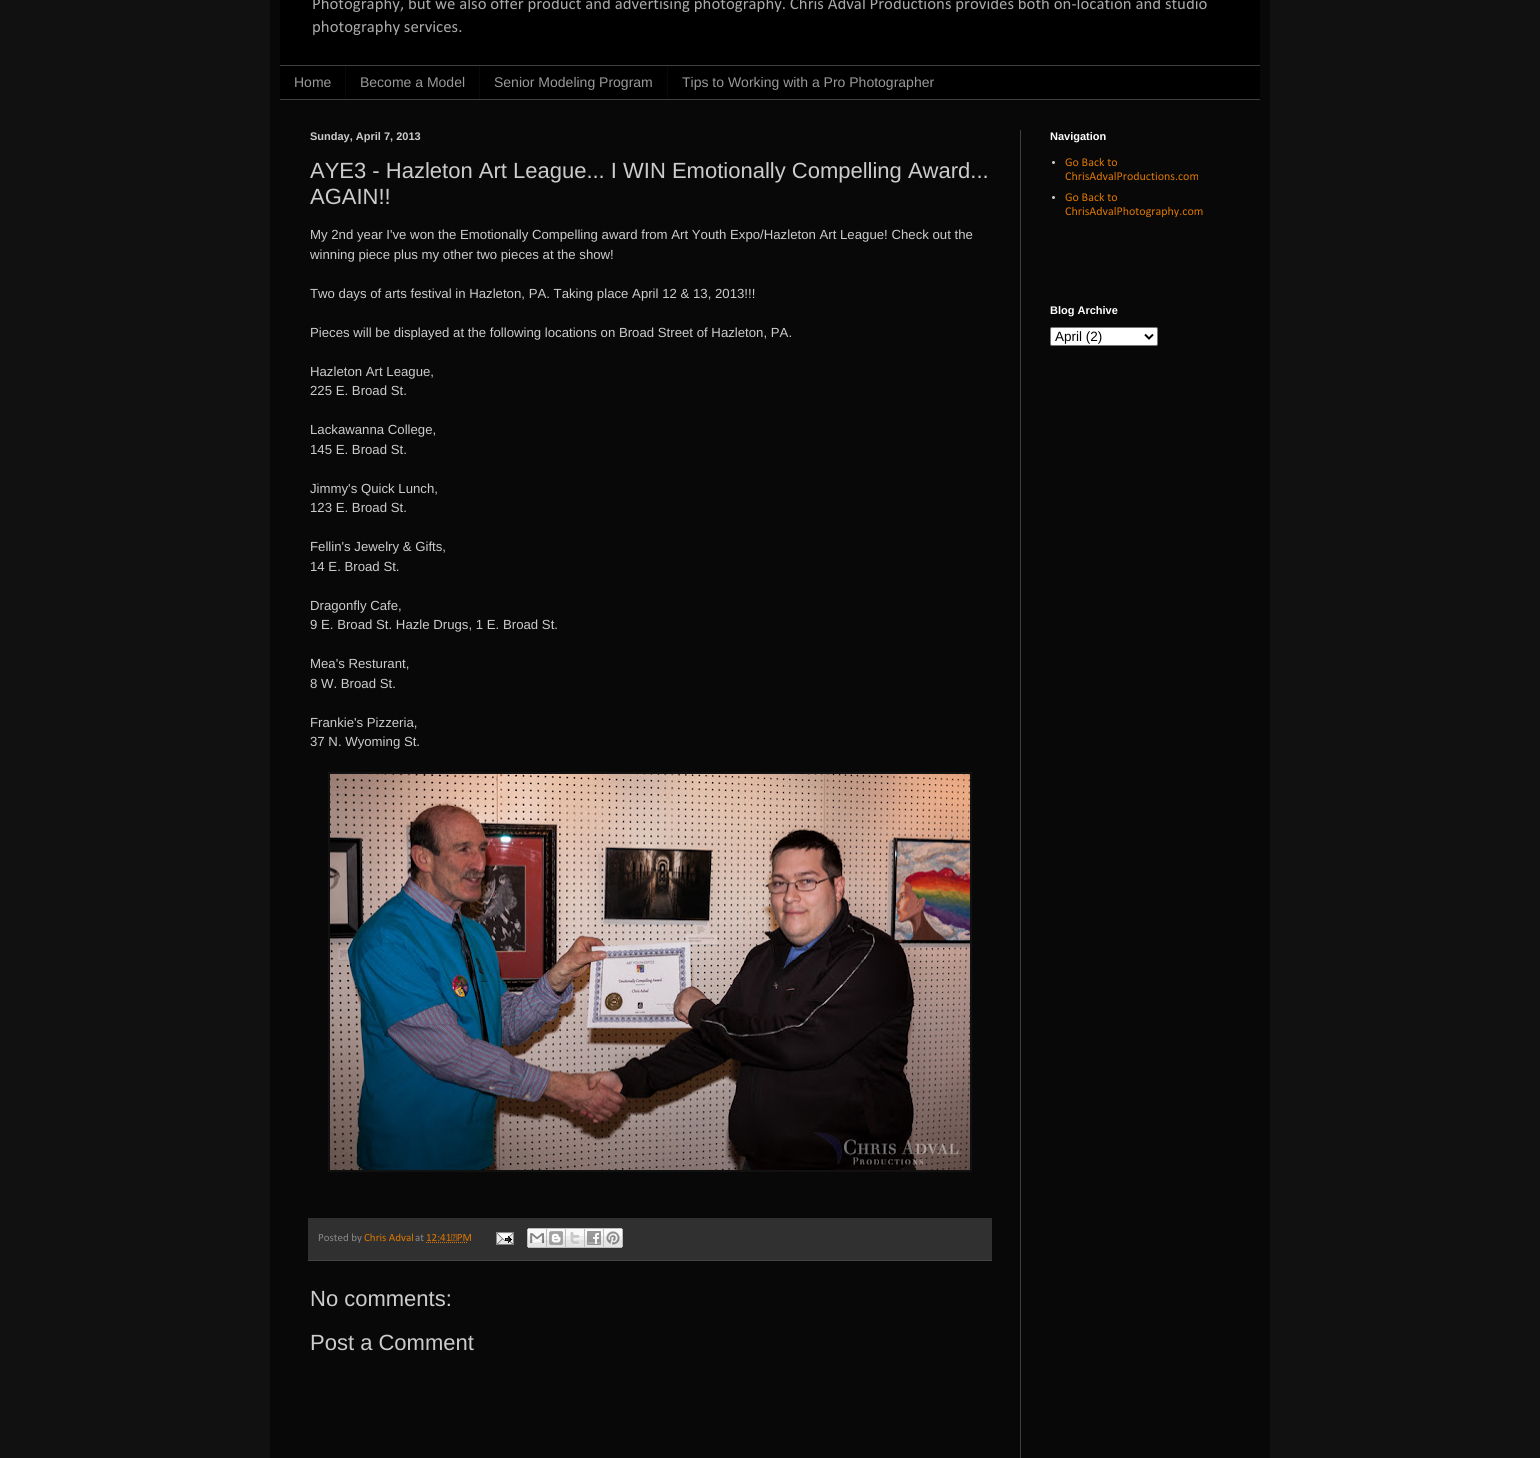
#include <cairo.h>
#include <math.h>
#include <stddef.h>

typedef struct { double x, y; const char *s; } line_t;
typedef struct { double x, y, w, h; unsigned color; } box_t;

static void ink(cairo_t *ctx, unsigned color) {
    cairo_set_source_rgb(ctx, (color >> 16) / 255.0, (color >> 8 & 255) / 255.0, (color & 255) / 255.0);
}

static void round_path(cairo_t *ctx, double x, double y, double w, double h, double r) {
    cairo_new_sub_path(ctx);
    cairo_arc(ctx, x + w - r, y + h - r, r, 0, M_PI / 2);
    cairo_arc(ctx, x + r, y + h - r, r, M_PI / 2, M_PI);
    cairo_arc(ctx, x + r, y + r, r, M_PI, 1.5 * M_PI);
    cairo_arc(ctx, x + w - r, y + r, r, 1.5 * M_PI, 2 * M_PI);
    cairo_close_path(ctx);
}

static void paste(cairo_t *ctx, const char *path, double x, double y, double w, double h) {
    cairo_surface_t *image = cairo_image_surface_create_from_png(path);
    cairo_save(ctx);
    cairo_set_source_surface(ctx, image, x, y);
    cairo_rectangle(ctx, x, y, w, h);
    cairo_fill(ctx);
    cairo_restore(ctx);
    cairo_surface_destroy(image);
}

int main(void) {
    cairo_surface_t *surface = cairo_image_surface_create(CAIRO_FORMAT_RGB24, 1540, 1458);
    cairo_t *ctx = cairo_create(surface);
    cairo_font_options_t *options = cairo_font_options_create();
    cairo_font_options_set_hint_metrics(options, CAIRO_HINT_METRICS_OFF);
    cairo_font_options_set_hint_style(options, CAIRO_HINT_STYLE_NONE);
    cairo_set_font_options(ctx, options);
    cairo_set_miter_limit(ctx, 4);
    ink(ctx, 0x111111);
    cairo_paint(ctx);
    ink(ctx, 0x080808);
    cairo_rectangle(ctx, 270, 0, 1000, 1458);
    cairo_fill(ctx);
    ink(ctx, 0x000000);
    cairo_rectangle(ctx, 280, 0, 980, 65);
    cairo_fill(ctx);
    cairo_select_font_face(ctx, "Calibri", CAIRO_FONT_SLANT_NORMAL, CAIRO_FONT_WEIGHT_NORMAL);
    cairo_set_font_size(ctx, 16.8);
    ink(ctx, 0xAAAAAA);
    cairo_move_to(ctx, 312, 9);
    cairo_show_text(ctx, "Photography, but we also offer product and advertising photography. Chris Adval Productions provides both on-location and studio");
    cairo_move_to(ctx, 312, 32);
    cairo_show_text(ctx, "photography services.");
    {
        static const box_t items[] = {
            {280, 66, 980, 33, 0x000000},
            {280, 65, 980, 1, 0x404040},
            {280, 99, 980, 1, 0x404040},
        };
        for (size_t i = 0; i < sizeof items / sizeof *items; i++) {
            ink(ctx, items[i].color);
            cairo_rectangle(ctx, items[i].x, items[i].y, items[i].w, items[i].h);
            cairo_fill(ctx);
        }
    }
    cairo_select_font_face(ctx, "Liberation Sans", CAIRO_FONT_SLANT_NORMAL, CAIRO_FONT_WEIGHT_NORMAL);
    cairo_set_font_size(ctx, 14);
    ink(ctx, 0x999999);
    cairo_move_to(ctx, 294, 87);
    cairo_show_text(ctx, "Home");
    ink(ctx, 0x080808);
    cairo_rectangle(ctx, 345, 66, 1, 33);
    cairo_fill(ctx);
    ink(ctx, 0x999999);
    cairo_move_to(ctx, 360, 87);
    cairo_show_text(ctx, "Become a Model");
    ink(ctx, 0x080808);
    cairo_rectangle(ctx, 479, 66, 1, 33);
    cairo_fill(ctx);
    ink(ctx, 0x999999);
    cairo_move_to(ctx, 494, 87);
    cairo_show_text(ctx, "Senior Modeling Program");
    ink(ctx, 0x080808);
    cairo_rectangle(ctx, 667, 66, 1, 33);
    cairo_fill(ctx);
    ink(ctx, 0x999999);
    cairo_move_to(ctx, 682, 87);
    cairo_show_text(ctx, "Tips to Working with a Pro Photographer");
    ink(ctx, 0x404040);
    cairo_rectangle(ctx, 1020, 130, 1, 1328);
    cairo_fill(ctx);
    cairo_select_font_face(ctx, "Liberation Sans", CAIRO_FONT_SLANT_NORMAL, CAIRO_FONT_WEIGHT_BOLD);
    cairo_set_font_size(ctx, 11);
    ink(ctx, 0xCCCCCC);
    cairo_move_to(ctx, 310, 140);
    cairo_show_text(ctx, "Sunday, April 7, 2013");
    cairo_select_font_face(ctx, "Liberation Sans", CAIRO_FONT_SLANT_NORMAL, CAIRO_FONT_WEIGHT_NORMAL);
    cairo_set_font_size(ctx, 22);
    cairo_move_to(ctx, 310, 178);
    cairo_show_text(ctx, "AYE3 - Hazleton Art League... I WIN Emotionally Compelling Award...");
    cairo_move_to(ctx, 310, 204);
    cairo_show_text(ctx, "AGAIN!!");
    cairo_set_font_size(ctx, 13.2);
    {
        static const line_t items[] = {
            {310, 239, "My 2nd year I've won the Emotionally Compelling award from Art Youth Expo/Hazleton Art League! Check out the"},
            {310, 259, "winning piece plus my other two pieces at the show!"},
            {310, 298, "Two days of arts festival in Hazleton, PA. Taking place April 12 & 13, 2013!!!"},
            {310, 337, "Pieces will be displayed at the following locations on Broad Street of Hazleton, PA."},
            {310, 376, "Hazleton Art League,"},
            {310, 395, "225 E. Broad St."},
            {310, 434, "Lackawanna College,"},
            {310, 454, "145 E. Broad St."},
            {310, 493, "Jimmy's Quick Lunch,"},
            {310, 512, "123 E. Broad St."},
            {310, 551, "Fellin's Jewelry & Gifts,"},
            {310, 571, "14 E. Broad St."},
            {310, 610, "Dragonfly Cafe,"},
            {310, 629, "9 E. Broad St. Hazle Drugs, 1 E. Broad St."},
            {310, 668, "Mea's Resturant,"},
            {310, 688, "8 W. Broad St."},
            {310, 727, "Frankie's Pizzeria,"},
            {310, 746, "37 N. Wyoming St."},
        };
        for (size_t i = 0; i < sizeof items / sizeof *items; i++) {
            cairo_move_to(ctx, items[i].x, items[i].y);
            cairo_show_text(ctx, items[i].s);
        }
    }
    ink(ctx, 0x111111);
    cairo_rectangle(ctx, 328, 772, 644, 400);
    cairo_fill(ctx);
    paste(ctx, "media/1.png", 330, 774, 640, 396);
    ink(ctx, 0x303030);
    cairo_rectangle(ctx, 308, 1218, 684, 42);
    cairo_fill(ctx);
    ink(ctx, 0x444444);
    cairo_rectangle(ctx, 308, 1260, 684, 1);
    cairo_fill(ctx);
    cairo_select_font_face(ctx, "Calibri", CAIRO_FONT_SLANT_NORMAL, CAIRO_FONT_WEIGHT_NORMAL);
    cairo_set_font_size(ctx, 11);
    ink(ctx, 0x888888);
    cairo_move_to(ctx, 318, 1241);
    cairo_show_text(ctx, "Posted by");
    ink(ctx, 0xDD7700);
    cairo_move_to(ctx, 364, 1241);
    cairo_show_text(ctx, "Chris Adval");
    ink(ctx, 0x888888);
    cairo_move_to(ctx, 415, 1241);
    cairo_show_text(ctx, "at");
    ink(ctx, 0xDD7700);
    cairo_move_to(ctx, 426, 1241);
    cairo_show_text(ctx, "12:41 PM");
    cairo_new_path(ctx);
    cairo_move_to(ctx, 426, 1242.5);
    cairo_line_to(ctx, 467, 1242.5);
    cairo_set_line_width(ctx, 1);
    cairo_set_dash(ctx, (double[]){1, 1}, 2, 0);
    cairo_stroke(ctx);
    paste(ctx, "media/2.png", 496, 1232, 18, 13);
    paste(ctx, "media/3.png", 527, 1228, 20, 20);
    paste(ctx, "media/4.png", 547, 1228, 19, 20);
    paste(ctx, "media/5.png", 566, 1228, 19, 20);
    paste(ctx, "media/6.png", 585, 1228, 19, 20);
    paste(ctx, "media/7.png", 604, 1228, 19, 20);
    cairo_select_font_face(ctx, "Liberation Sans", CAIRO_FONT_SLANT_NORMAL, CAIRO_FONT_WEIGHT_NORMAL);
    cairo_set_font_size(ctx, 22);
    ink(ctx, 0xCCCCCC);
    cairo_move_to(ctx, 310, 1306);
    cairo_show_text(ctx, "No comments:");
    cairo_move_to(ctx, 310, 1350);
    cairo_show_text(ctx, "Post a Comment");
    cairo_select_font_face(ctx, "Liberation Sans", CAIRO_FONT_SLANT_NORMAL, CAIRO_FONT_WEIGHT_BOLD);
    cairo_set_font_size(ctx, 11);
    ink(ctx, 0xFFFFFF);
    cairo_move_to(ctx, 1050, 140);
    cairo_show_text(ctx, "Navigation");
    ink(ctx, 0xCCCCCC);
    cairo_new_path(ctx);
    cairo_arc(ctx, 1053.5, 162.5, 1.5, 0, 2 * M_PI);
    cairo_fill(ctx);
    cairo_select_font_face(ctx, "Calibri", CAIRO_FONT_SLANT_NORMAL, CAIRO_FONT_WEIGHT_NORMAL);
    cairo_set_font_size(ctx, 12);
    ink(ctx, 0xDD7700);
    cairo_move_to(ctx, 1065, 166);
    cairo_show_text(ctx, "Go Back to");
    cairo_move_to(ctx, 1065, 180);
    cairo_show_text(ctx, "ChrisAdvalProductions.com");
    ink(ctx, 0xCCCCCC);
    cairo_new_path(ctx);
    cairo_arc(ctx, 1053.5, 197.5, 1.5, 0, 2 * M_PI);
    cairo_fill(ctx);
    ink(ctx, 0xDD7700);
    cairo_move_to(ctx, 1065, 201);
    cairo_show_text(ctx, "Go Back to");
    cairo_move_to(ctx, 1065, 215);
    cairo_show_text(ctx, "ChrisAdvalPhotography.com");
    cairo_select_font_face(ctx, "Liberation Sans", CAIRO_FONT_SLANT_NORMAL, CAIRO_FONT_WEIGHT_BOLD);
    cairo_set_font_size(ctx, 11);
    ink(ctx, 0xFFFFFF);
    cairo_move_to(ctx, 1050, 314);
    cairo_show_text(ctx, "Blog Archive");
    round_path(ctx, 1050.5, 327.5, 107, 18, 1.5);
    cairo_fill_preserve(ctx);
    ink(ctx, 0x767676);
    cairo_set_dash(ctx, NULL, 0, 0);
    cairo_stroke(ctx);
    cairo_new_path(ctx);
    cairo_move_to(ctx, 1145, 334.5);
    cairo_line_to(ctx, 1149, 338.5);
    cairo_line_to(ctx, 1153, 334.5);
    ink(ctx, 0x000000);
    cairo_set_line_width(ctx, 2);
    cairo_stroke(ctx);
    cairo_select_font_face(ctx, "Liberation Sans", CAIRO_FONT_SLANT_NORMAL, CAIRO_FONT_WEIGHT_NORMAL);
    cairo_set_font_size(ctx, 13.5);
    cairo_move_to(ctx, 1055, 341);
    cairo_show_text(ctx, "April (2)");
    cairo_surface_write_to_png(surface, "image.png");
    cairo_font_options_destroy(options);
    cairo_destroy(ctx);
    cairo_surface_destroy(surface);
    return 0;
}
